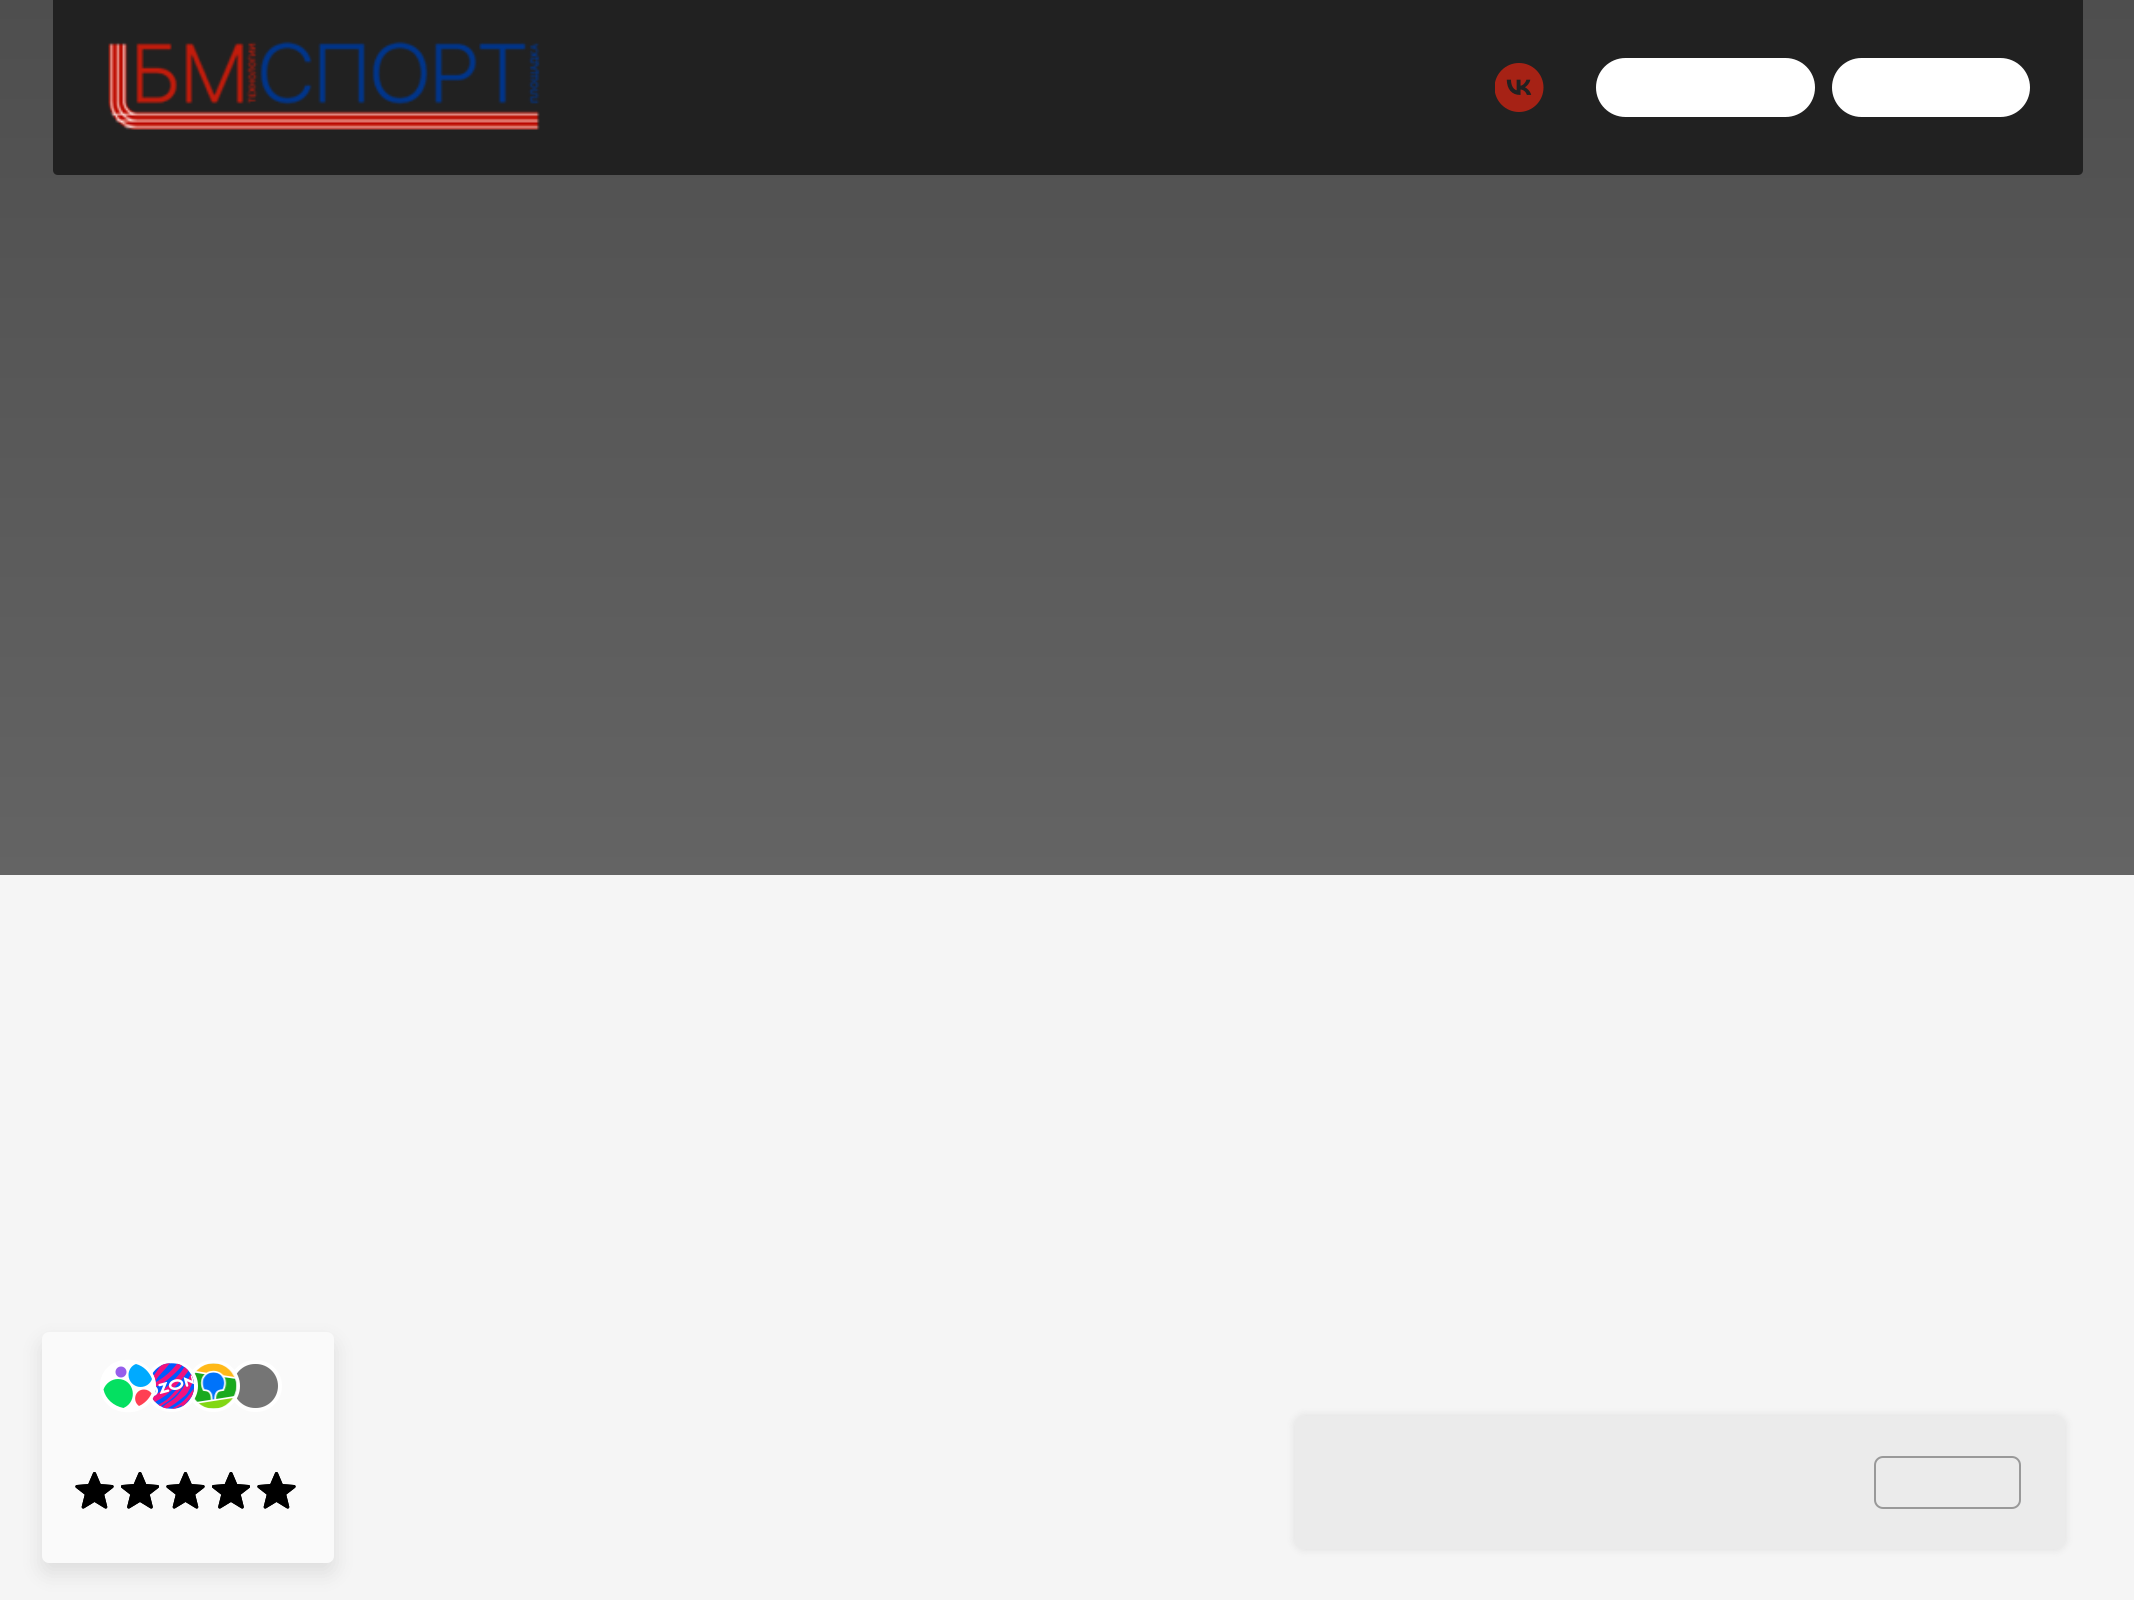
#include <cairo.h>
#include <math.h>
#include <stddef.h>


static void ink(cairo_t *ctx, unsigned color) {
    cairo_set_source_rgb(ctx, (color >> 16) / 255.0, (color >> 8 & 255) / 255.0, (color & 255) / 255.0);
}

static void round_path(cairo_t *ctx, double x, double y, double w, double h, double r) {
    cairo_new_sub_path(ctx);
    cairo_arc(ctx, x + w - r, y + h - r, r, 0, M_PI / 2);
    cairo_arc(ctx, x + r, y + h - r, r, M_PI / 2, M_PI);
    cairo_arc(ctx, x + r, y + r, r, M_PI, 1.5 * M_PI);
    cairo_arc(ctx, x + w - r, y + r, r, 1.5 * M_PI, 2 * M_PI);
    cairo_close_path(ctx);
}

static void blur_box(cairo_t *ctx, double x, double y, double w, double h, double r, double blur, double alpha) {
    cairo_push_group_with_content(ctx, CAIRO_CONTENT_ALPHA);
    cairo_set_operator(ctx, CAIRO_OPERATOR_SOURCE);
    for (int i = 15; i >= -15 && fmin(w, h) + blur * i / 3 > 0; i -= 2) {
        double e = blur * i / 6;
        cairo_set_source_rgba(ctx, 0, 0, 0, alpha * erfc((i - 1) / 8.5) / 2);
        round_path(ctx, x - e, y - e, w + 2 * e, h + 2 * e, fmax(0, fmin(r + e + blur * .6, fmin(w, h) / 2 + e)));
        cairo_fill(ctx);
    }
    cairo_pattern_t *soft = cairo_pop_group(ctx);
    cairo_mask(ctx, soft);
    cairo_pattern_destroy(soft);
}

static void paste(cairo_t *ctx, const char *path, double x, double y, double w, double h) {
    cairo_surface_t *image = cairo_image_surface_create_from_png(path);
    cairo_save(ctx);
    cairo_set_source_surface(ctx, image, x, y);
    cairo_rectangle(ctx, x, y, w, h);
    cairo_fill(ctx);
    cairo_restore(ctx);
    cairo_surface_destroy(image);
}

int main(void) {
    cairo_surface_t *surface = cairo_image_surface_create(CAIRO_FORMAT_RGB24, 2134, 1600);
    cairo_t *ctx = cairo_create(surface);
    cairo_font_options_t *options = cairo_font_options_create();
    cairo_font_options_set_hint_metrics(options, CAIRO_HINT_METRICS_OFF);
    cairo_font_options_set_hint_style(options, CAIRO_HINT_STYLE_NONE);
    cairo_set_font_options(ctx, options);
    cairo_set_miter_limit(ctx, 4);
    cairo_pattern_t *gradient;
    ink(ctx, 0xF5F5F5);
    cairo_paint(ctx);
    gradient = cairo_pattern_create_linear(1068, 0, 1068, 875);
    cairo_pattern_add_color_stop_rgba(gradient, 0, 0.306, 0.306, 0.306, 1);
    cairo_pattern_add_color_stop_rgba(gradient, 1, 0.392, 0.392, 0.392, 1);
    cairo_set_source(ctx, gradient);
    cairo_pattern_destroy(gradient);
    cairo_rectangle(ctx, 0, 0, 2134, 875);
    cairo_fill(ctx);
    ink(ctx, 0x212121);
    cairo_new_path(ctx);
    cairo_move_to(ctx, 53, 0);
    cairo_line_to(ctx, 2083, 0);
    cairo_line_to(ctx, 2083, 170);
    cairo_curve_to(ctx, 2083, 173, 2081, 175, 2078, 175);
    cairo_line_to(ctx, 58, 175);
    cairo_curve_to(ctx, 55, 175, 53, 173, 53, 170);
    cairo_close_path(ctx);
    cairo_fill(ctx);
    paste(ctx, "media/1.png", 108, 41, 432, 89);
    paste(ctx, "media/2.png", 1495, 63, 49, 49);
    ink(ctx, 0xFFFFFF);
    round_path(ctx, 1596, 58, 219, 59, 29.5);
    cairo_fill(ctx);
    round_path(ctx, 1832, 58, 198, 59, 29.5);
    cairo_fill(ctx);
    ink(ctx, 0x000000);
    blur_box(ctx, 1295, 1416, 770, 133, 9, 4.5, 0.1);
    ink(ctx, 0xEBEBEB);
    round_path(ctx, 1295, 1416, 770, 133, 9);
    cairo_fill(ctx);
    round_path(ctx, 1875, 1457, 145, 51, 8);
    ink(ctx, 0x999999);
    cairo_stroke(ctx);
    ink(ctx, 0x000000);
    blur_box(ctx, 42, 1342, 292, 231, 7, 10.5, 0.1);
    ink(ctx, 0xFAFAFA);
    round_path(ctx, 43, 1333, 290, 229, 6);
    cairo_fill_preserve(ctx);
    cairo_stroke(ctx);
    ink(ctx, 0x757575);
    round_path(ctx, 231, 1362, 49, 48, 24);
    cairo_fill_preserve(ctx);
    ink(ctx, 0xFFFFFF);
    cairo_set_line_width(ctx, 4);
    cairo_stroke(ctx);
    round_path(ctx, 189, 1362, 49, 48, 24);
    cairo_stroke(ctx);
    paste(ctx, "media/4.png", 192, 1363, 45, 46);
    round_path(ctx, 147, 1362, 49, 48, 24);
    cairo_stroke(ctx);
    paste(ctx, "media/3.png", 152, 1363, 42, 46);
    cairo_new_path(ctx);
    cairo_move_to(ctx, 128, 1360);
    cairo_curve_to(ctx, 143.5, 1360, 156, 1371.5, 156, 1386);
    cairo_curve_to(ctx, 156, 1400.5, 143.5, 1412, 128, 1412);
    cairo_curve_to(ctx, 112.5, 1412, 100, 1400.5, 100, 1386);
    cairo_curve_to(ctx, 100, 1371.5, 112.5, 1360, 128, 1360);
    cairo_close_path(ctx);
    cairo_fill(ctx);
    cairo_new_path(ctx);
    cairo_move_to(ctx, 128, 1361.5);
    cairo_curve_to(ctx, 162.5, 1361.5, 162.5, 1410.5, 128, 1410.5);
    cairo_curve_to(ctx, 93, 1410.5, 93, 1361.5, 128, 1361.5);
    cairo_close_path(ctx);
    cairo_set_line_width(ctx, 3.5);
    cairo_stroke(ctx);
    ink(ctx, 0x00AAFF);
    cairo_new_path(ctx);
    cairo_move_to(ctx, 136, 1364);
    cairo_curve_to(ctx, 143.5, 1366, 149.5, 1372, 152, 1379);
    cairo_curve_to(ctx, 150.5, 1383.5, 146, 1387, 140.5, 1387);
    cairo_curve_to(ctx, 134, 1387, 128.5, 1381.5, 128.5, 1375);
    cairo_curve_to(ctx, 128.5, 1370, 131.5, 1365.5, 136, 1364);
    cairo_close_path(ctx);
    cairo_fill(ctx);
    ink(ctx, 0xFF4053);
    cairo_new_path(ctx);
    cairo_move_to(ctx, 144, 1389.5);
    cairo_curve_to(ctx, 147, 1389.5, 150, 1391, 151.5, 1393.5);
    cairo_curve_to(ctx, 149, 1399, 144.5, 1403.5, 139, 1406);
    cairo_curve_to(ctx, 132, 1401, 135, 1389.5, 144, 1389.5);
    cairo_close_path(ctx);
    cairo_fill(ctx);
    ink(ctx, 0x965EEB);
    cairo_arc(ctx, 121, 1372, 5.5, 0, 2 * M_PI);
    cairo_fill(ctx);
    ink(ctx, 0x04E061);
    cairo_new_path(ctx);
    cairo_move_to(ctx, 118, 1379);
    cairo_curve_to(ctx, 134.5, 1379, 138.5, 1401.5, 123.5, 1408);
    cairo_curve_to(ctx, 113.5, 1406, 105.5, 1399, 103.5, 1389.5);
    cairo_curve_to(ctx, 105.5, 1383.5, 111.5, 1379, 118, 1379);
    cairo_close_path(ctx);
    cairo_fill(ctx);
    paste(ctx, "media/5.png", 75, 1472, 39, 37);
    paste(ctx, "media/6.png", 75, 1472, 39, 37);
    paste(ctx, "media/7.png", 121, 1472, 38, 37);
    paste(ctx, "media/8.png", 121, 1472, 38, 37);
    paste(ctx, "media/5.png", 166, 1472, 39, 37);
    paste(ctx, "media/6.png", 166, 1472, 39, 37);
    paste(ctx, "media/7.png", 212, 1472, 38, 37);
    paste(ctx, "media/8.png", 212, 1472, 38, 37);
    paste(ctx, "media/5.png", 257, 1472, 39, 37);
    paste(ctx, "media/6.png", 257, 1472, 39, 37);
    cairo_surface_write_to_png(surface, "image.png");
    cairo_font_options_destroy(options);
    cairo_destroy(ctx);
    cairo_surface_destroy(surface);
    return 0;
}
